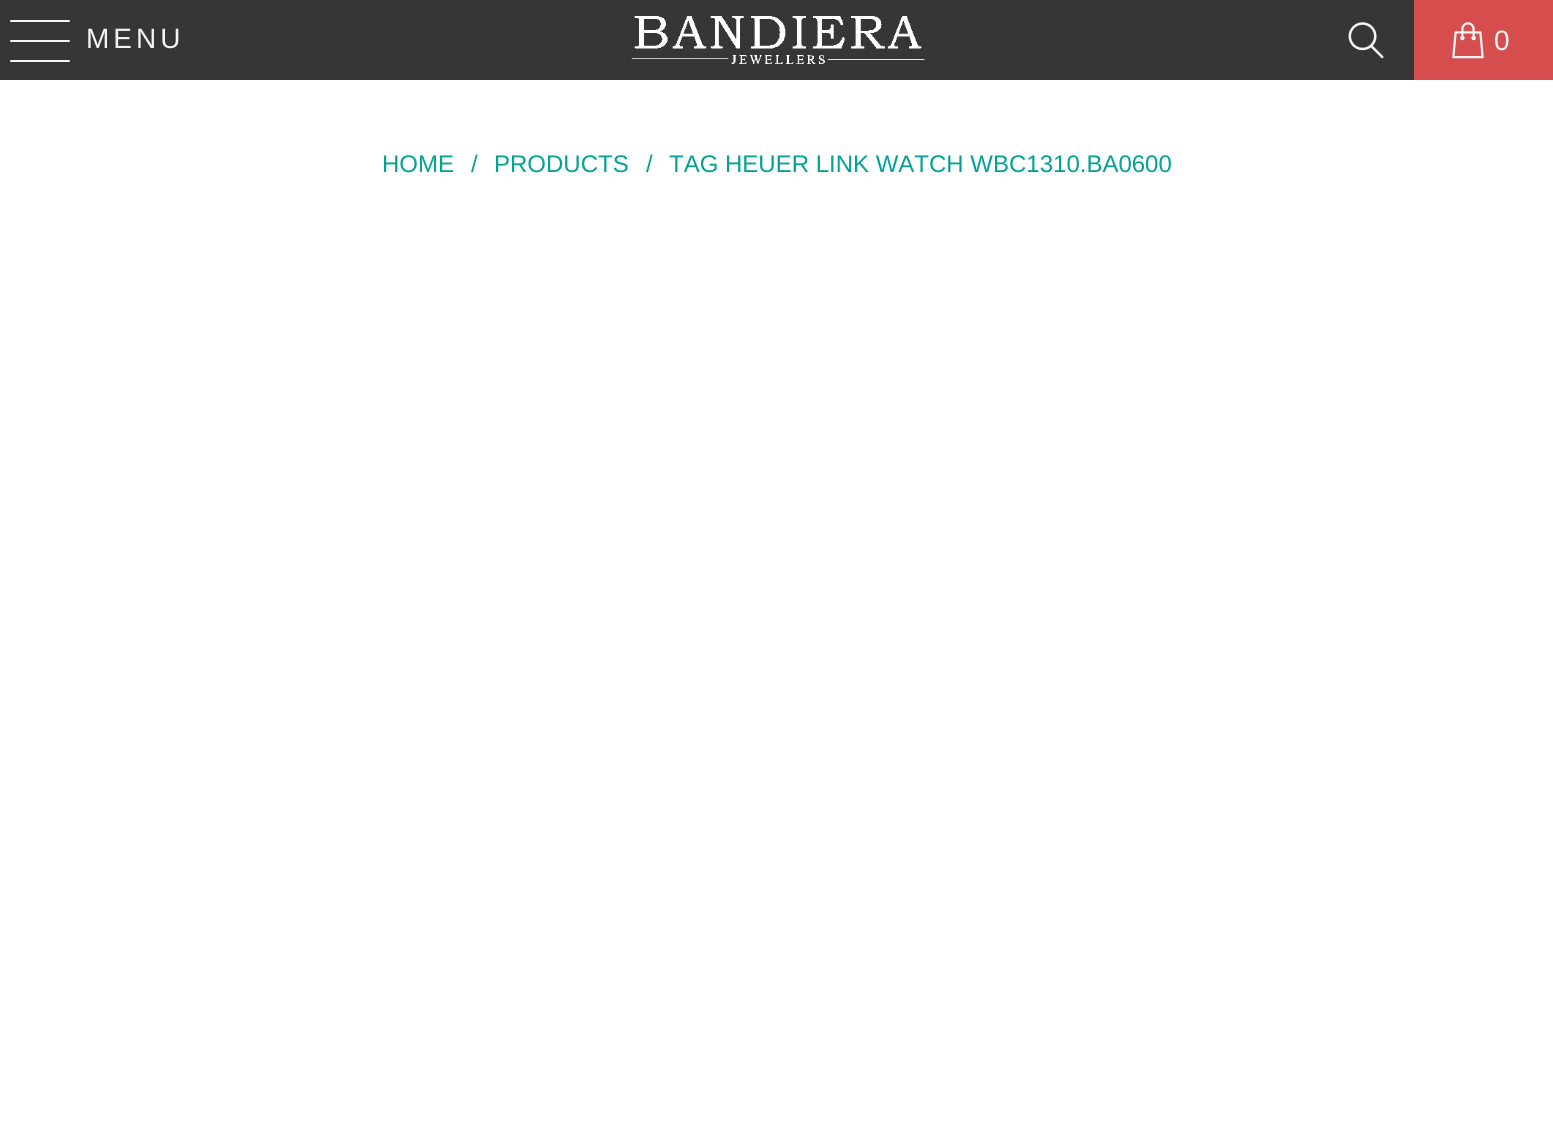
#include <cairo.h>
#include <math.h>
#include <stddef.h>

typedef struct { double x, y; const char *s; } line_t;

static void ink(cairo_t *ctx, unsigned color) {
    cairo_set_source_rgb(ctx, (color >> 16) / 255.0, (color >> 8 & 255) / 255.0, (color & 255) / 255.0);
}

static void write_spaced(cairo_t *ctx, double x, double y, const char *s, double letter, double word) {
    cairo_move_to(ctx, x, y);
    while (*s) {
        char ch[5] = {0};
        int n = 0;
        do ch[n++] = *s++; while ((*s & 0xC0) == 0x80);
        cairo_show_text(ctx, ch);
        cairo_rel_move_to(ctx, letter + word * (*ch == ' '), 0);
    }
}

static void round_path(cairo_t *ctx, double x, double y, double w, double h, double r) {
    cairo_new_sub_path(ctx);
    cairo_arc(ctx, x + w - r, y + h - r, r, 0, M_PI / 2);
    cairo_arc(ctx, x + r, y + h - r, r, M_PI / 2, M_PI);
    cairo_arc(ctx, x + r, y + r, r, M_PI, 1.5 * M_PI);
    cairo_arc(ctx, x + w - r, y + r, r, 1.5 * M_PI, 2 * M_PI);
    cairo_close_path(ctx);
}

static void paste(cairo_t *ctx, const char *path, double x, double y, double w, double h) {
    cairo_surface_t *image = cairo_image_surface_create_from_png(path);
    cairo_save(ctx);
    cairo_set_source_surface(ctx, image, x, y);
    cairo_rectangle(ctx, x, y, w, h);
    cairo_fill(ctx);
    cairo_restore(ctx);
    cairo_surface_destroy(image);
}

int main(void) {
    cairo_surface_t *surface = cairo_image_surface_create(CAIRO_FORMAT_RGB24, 1553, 1124);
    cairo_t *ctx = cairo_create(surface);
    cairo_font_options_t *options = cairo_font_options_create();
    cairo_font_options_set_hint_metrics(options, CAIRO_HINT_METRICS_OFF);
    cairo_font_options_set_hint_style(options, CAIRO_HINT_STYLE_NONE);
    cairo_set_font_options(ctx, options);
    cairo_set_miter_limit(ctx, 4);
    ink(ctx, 0xFFFFFF);
    cairo_paint(ctx);
    ink(ctx, 0x363636);
    cairo_rectangle(ctx, 0, 0, 1414, 80);
    cairo_fill(ctx);
    ink(ctx, 0xF4F4F4);
    round_path(ctx, 10, 20, 60, 2, 1);
    cairo_fill(ctx);
    round_path(ctx, 10, 40, 60, 2, 1);
    cairo_fill(ctx);
    round_path(ctx, 10, 60, 60, 2, 1);
    cairo_fill(ctx);
    cairo_select_font_face(ctx, "Liberation Sans", CAIRO_FONT_SLANT_NORMAL, CAIRO_FONT_WEIGHT_NORMAL);
    cairo_set_font_size(ctx, 28);
    write_spaced(ctx, 86, 48, "MENU", 4, 0);
    paste(ctx, "media/1.png", 631, 16, 294, 48);
    paste(ctx, "media/2.png", 1348, 22, 36, 37);
    ink(ctx, 0xD54D4D);
    cairo_rectangle(ctx, 1414, 0, 139, 80);
    cairo_fill(ctx);
    paste(ctx, "media/3.png", 1452, 22, 32, 37);
    ink(ctx, 0xF4F4F4);
    write_spaced(ctx, 1494, 50, "0", 4, 0);
    cairo_set_font_size(ctx, 24);
    ink(ctx, 0x03A196);
    {
        static const line_t items[] = {
            {382, 172, "HOME"},
            {471, 172, "/"},
            {494, 172, "PRODUCTS"},
            {646, 172, "/"},
            {669, 172, "TAG HEUER LINK WATCH WBC1310.BA0600"},
        };
        for (size_t i = 0; i < sizeof items / sizeof *items; i++) {
            cairo_move_to(ctx, items[i].x, items[i].y);
            cairo_show_text(ctx, items[i].s);
        }
    }
    cairo_surface_write_to_png(surface, "image.png");
    cairo_font_options_destroy(options);
    cairo_destroy(ctx);
    cairo_surface_destroy(surface);
    return 0;
}
